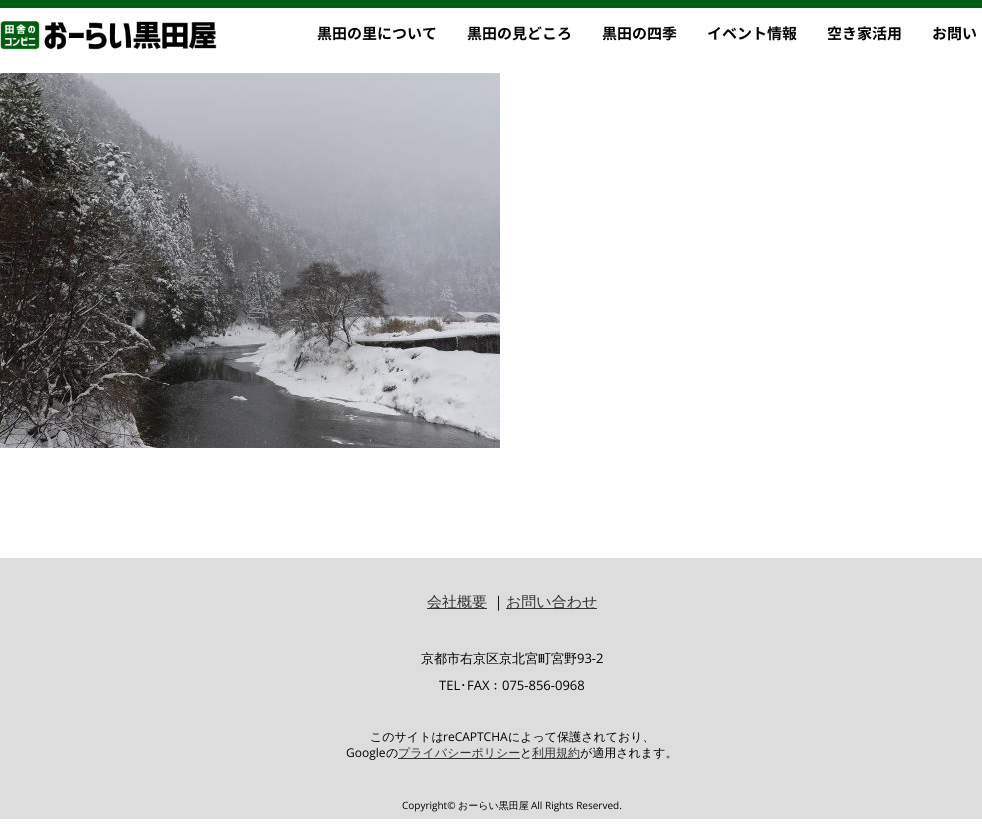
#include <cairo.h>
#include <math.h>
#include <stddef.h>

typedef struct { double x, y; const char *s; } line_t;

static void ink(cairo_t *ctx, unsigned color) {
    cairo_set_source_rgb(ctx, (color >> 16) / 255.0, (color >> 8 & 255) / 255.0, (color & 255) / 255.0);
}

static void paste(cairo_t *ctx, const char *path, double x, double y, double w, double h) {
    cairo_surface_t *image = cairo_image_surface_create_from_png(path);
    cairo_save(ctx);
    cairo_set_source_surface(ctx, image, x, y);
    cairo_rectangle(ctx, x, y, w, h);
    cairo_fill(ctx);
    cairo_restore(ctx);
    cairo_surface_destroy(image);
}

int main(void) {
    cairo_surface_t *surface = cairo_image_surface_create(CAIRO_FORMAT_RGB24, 982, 830);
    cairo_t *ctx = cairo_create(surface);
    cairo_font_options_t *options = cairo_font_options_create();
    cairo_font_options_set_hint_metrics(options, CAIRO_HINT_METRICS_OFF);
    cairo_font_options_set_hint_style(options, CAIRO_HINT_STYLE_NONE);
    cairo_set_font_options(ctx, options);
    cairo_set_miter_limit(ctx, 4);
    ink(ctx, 0xFFFFFF);
    cairo_paint(ctx);
    ink(ctx, 0x025C11);
    cairo_rectangle(ctx, 0, 0, 982, 8);
    cairo_fill(ctx);
    paste(ctx, "media/1.png", 0, 21, 217, 29);
    cairo_select_font_face(ctx, "Noto Sans JP", CAIRO_FONT_SLANT_NORMAL, CAIRO_FONT_WEIGHT_BOLD);
    cairo_set_font_size(ctx, 15);
    ink(ctx, 0x000000);
    {
        static const line_t items[] = {
            {317, 39, "黒田の里について"},
            {467, 39, "黒田の見どころ"},
            {602, 39, "黒田の四季"},
            {707, 39, "イベント情報"},
            {827, 39, "空き家活用"},
            {932, 39, "お問い"},
        };
        for (size_t i = 0; i < sizeof items / sizeof *items; i++) {
            cairo_move_to(ctx, items[i].x, items[i].y);
            cairo_show_text(ctx, items[i].s);
        }
    }
    paste(ctx, "media/2.png", 0, 73, 500, 375);
    ink(ctx, 0xDDDDDD);
    cairo_rectangle(ctx, 0, 558, 982, 261);
    cairo_fill(ctx);
    ink(ctx, 0x333333);
    cairo_rectangle(ctx, 427, 608, 60, 1);
    cairo_fill(ctx);
    cairo_select_font_face(ctx, "WenQuanYi Zen Hei Medium", CAIRO_FONT_SLANT_NORMAL, CAIRO_FONT_WEIGHT_NORMAL);
    cairo_move_to(ctx, 427, 607);
    cairo_show_text(ctx, "会社概要");
    ink(ctx, 0x000000);
    cairo_move_to(ctx, 491, 607);
    cairo_show_text(ctx, "｜");
    ink(ctx, 0x333333);
    cairo_rectangle(ctx, 506, 608, 91, 1);
    cairo_fill(ctx);
    cairo_move_to(ctx, 506, 607);
    cairo_show_text(ctx, "お問い合わせ");
    cairo_set_font_size(ctx, 13);
    ink(ctx, 0x000000);
    cairo_move_to(ctx, 421, 663);
    cairo_show_text(ctx, "京都市右京区京北宮町宮野");
    cairo_select_font_face(ctx, "Open Sans", CAIRO_FONT_SLANT_NORMAL, CAIRO_FONT_WEIGHT_NORMAL);
    cairo_move_to(ctx, 577, 663);
    cairo_show_text(ctx, "93-2");
    cairo_move_to(ctx, 439, 690);
    cairo_show_text(ctx, "TEL");
    cairo_select_font_face(ctx, "IPAGothic", CAIRO_FONT_SLANT_NORMAL, CAIRO_FONT_WEIGHT_NORMAL);
    cairo_move_to(ctx, 460, 690);
    cairo_show_text(ctx, "･");
    cairo_select_font_face(ctx, "Open Sans", CAIRO_FONT_SLANT_NORMAL, CAIRO_FONT_WEIGHT_NORMAL);
    cairo_move_to(ctx, 467, 690);
    cairo_show_text(ctx, "FAX");
    cairo_select_font_face(ctx, "IPAGothic", CAIRO_FONT_SLANT_NORMAL, CAIRO_FONT_WEIGHT_NORMAL);
    cairo_move_to(ctx, 489, 690);
    cairo_show_text(ctx, "：");
    cairo_select_font_face(ctx, "Open Sans", CAIRO_FONT_SLANT_NORMAL, CAIRO_FONT_WEIGHT_NORMAL);
    cairo_move_to(ctx, 502, 690);
    cairo_show_text(ctx, "075-856-0968");
    cairo_select_font_face(ctx, "WenQuanYi Zen Hei Medium", CAIRO_FONT_SLANT_NORMAL, CAIRO_FONT_WEIGHT_NORMAL);
    cairo_set_font_size(ctx, 12);
    cairo_move_to(ctx, 370, 741);
    cairo_show_text(ctx, "このサイトは");
    cairo_select_font_face(ctx, "Open Sans", CAIRO_FONT_SLANT_NORMAL, CAIRO_FONT_WEIGHT_NORMAL);
    cairo_move_to(ctx, 443, 741);
    cairo_show_text(ctx, "reCAPTCHA");
    cairo_select_font_face(ctx, "WenQuanYi Zen Hei Medium", CAIRO_FONT_SLANT_NORMAL, CAIRO_FONT_WEIGHT_NORMAL);
    cairo_move_to(ctx, 508, 741);
    cairo_show_text(ctx, "によって保護されており、");
    cairo_select_font_face(ctx, "Open Sans", CAIRO_FONT_SLANT_NORMAL, CAIRO_FONT_WEIGHT_NORMAL);
    cairo_move_to(ctx, 346, 757);
    cairo_show_text(ctx, "Google");
    cairo_select_font_face(ctx, "WenQuanYi Zen Hei Medium", CAIRO_FONT_SLANT_NORMAL, CAIRO_FONT_WEIGHT_NORMAL);
    cairo_move_to(ctx, 386, 757);
    cairo_show_text(ctx, "の");
    ink(ctx, 0x333333);
    cairo_rectangle(ctx, 398, 758, 122, 1);
    cairo_fill(ctx);
    cairo_move_to(ctx, 398, 757);
    cairo_show_text(ctx, "プライバシーポリシー");
    ink(ctx, 0x000000);
    cairo_move_to(ctx, 520, 757);
    cairo_show_text(ctx, "と");
    ink(ctx, 0x333333);
    cairo_rectangle(ctx, 532, 758, 48, 1);
    cairo_fill(ctx);
    cairo_move_to(ctx, 532, 757);
    cairo_show_text(ctx, "利用規約");
    ink(ctx, 0x000000);
    cairo_move_to(ctx, 580, 757);
    cairo_show_text(ctx, "が適用されます。");
    cairo_select_font_face(ctx, "Open Sans", CAIRO_FONT_SLANT_NORMAL, CAIRO_FONT_WEIGHT_NORMAL);
    cairo_set_font_size(ctx, 10);
    cairo_move_to(ctx, 402, 809);
    cairo_show_text(ctx, "Copyright©");
    cairo_select_font_face(ctx, "WenQuanYi Zen Hei Medium", CAIRO_FONT_SLANT_NORMAL, CAIRO_FONT_WEIGHT_NORMAL);
    cairo_move_to(ctx, 458, 809);
    cairo_show_text(ctx, "おーらい黒田屋");
    cairo_select_font_face(ctx, "Open Sans", CAIRO_FONT_SLANT_NORMAL, CAIRO_FONT_WEIGHT_NORMAL);
    cairo_move_to(ctx, 531, 809);
    cairo_show_text(ctx, "All Rights Reserved.");
    cairo_surface_write_to_png(surface, "image.png");
    cairo_font_options_destroy(options);
    cairo_destroy(ctx);
    cairo_surface_destroy(surface);
    return 0;
}
